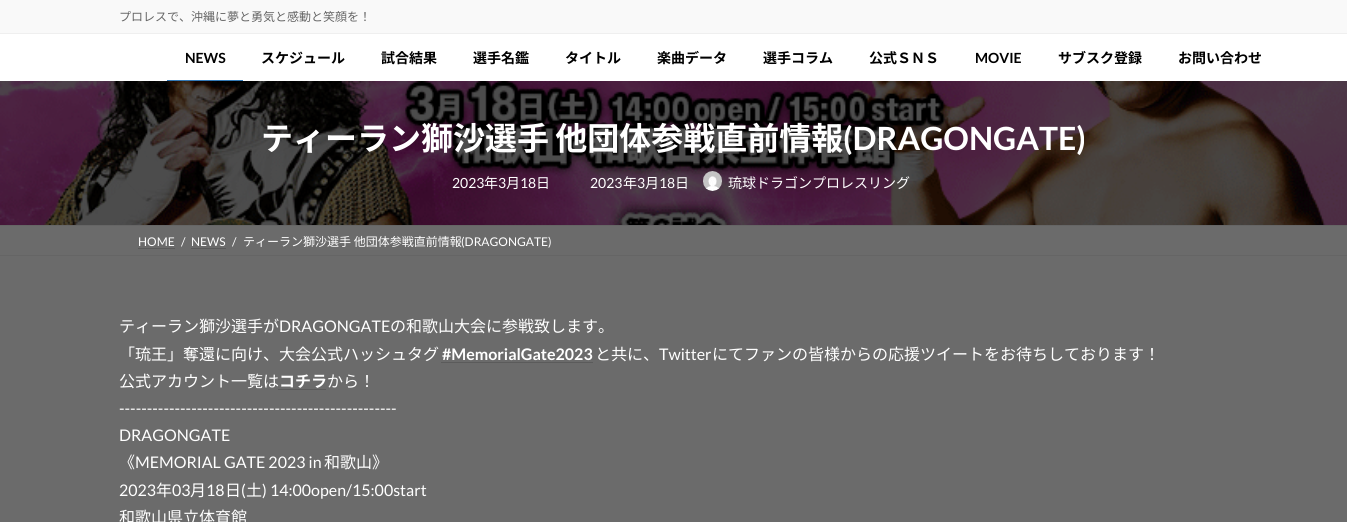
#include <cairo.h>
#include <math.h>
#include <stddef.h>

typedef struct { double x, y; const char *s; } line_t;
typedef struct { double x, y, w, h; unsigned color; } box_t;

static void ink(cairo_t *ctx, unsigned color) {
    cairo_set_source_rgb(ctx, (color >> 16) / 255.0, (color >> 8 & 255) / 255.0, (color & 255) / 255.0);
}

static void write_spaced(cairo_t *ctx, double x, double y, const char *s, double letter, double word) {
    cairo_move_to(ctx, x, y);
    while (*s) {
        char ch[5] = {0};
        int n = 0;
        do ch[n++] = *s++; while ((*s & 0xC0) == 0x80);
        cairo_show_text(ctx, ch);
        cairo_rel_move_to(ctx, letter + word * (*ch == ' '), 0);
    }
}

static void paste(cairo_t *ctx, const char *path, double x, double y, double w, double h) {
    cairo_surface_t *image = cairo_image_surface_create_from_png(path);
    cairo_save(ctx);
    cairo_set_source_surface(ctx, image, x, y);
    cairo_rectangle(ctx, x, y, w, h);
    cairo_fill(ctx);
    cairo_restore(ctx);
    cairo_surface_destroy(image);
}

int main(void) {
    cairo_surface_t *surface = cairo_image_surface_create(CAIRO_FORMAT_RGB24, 1347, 522);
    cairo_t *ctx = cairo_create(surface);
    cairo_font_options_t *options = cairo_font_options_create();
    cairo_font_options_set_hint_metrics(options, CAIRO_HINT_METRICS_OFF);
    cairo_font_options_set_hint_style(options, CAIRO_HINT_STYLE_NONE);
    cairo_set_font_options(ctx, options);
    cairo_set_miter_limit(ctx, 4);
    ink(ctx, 0x6B6B6B);
    cairo_paint(ctx);
    {
        static const box_t items[] = {
            {0, 34, 1347, 47, 0xFFFFFF},
            {0, 0, 1347, 33, 0xF9F9F9},
            {0, 33, 1347, 1, 0xEFEFEF},
        };
        for (size_t i = 0; i < sizeof items / sizeof *items; i++) {
            ink(ctx, items[i].color);
            cairo_rectangle(ctx, items[i].x, items[i].y, items[i].w, items[i].h);
            cairo_fill(ctx);
        }
    }
    cairo_select_font_face(ctx, "Noto Sans JP", CAIRO_FONT_SLANT_NORMAL, CAIRO_FONT_WEIGHT_NORMAL);
    cairo_set_font_size(ctx, 12);
    ink(ctx, 0x666666);
    cairo_move_to(ctx, 119, 21);
    cairo_show_text(ctx, "プロレスで、沖縄に夢と勇気と感動と笑顔を！");
    cairo_select_font_face(ctx, "Lato", CAIRO_FONT_SLANT_NORMAL, CAIRO_FONT_WEIGHT_BOLD);
    cairo_set_font_size(ctx, 14);
    ink(ctx, 0x000000);
    cairo_move_to(ctx, 185, 63);
    cairo_show_text(ctx, "NEWS");
    ink(ctx, 0x337AB7);
    cairo_rectangle(ctx, 167, 80, 76, 1);
    cairo_fill(ctx);
    cairo_select_font_face(ctx, "Noto Sans JP", CAIRO_FONT_SLANT_NORMAL, CAIRO_FONT_WEIGHT_BOLD);
    ink(ctx, 0x000000);
    {
        static const line_t items[] = {
            {261, 63, "スケジュール"},
            {381, 63, "試合結果"},
            {473, 63, "選手名鑑"},
            {565, 63, "タイトル"},
            {657, 63, "楽曲データ"},
            {763, 63, "選手コラム"},
            {869, 63, "公式ＳＮＳ"},
        };
        for (size_t i = 0; i < sizeof items / sizeof *items; i++) {
            cairo_move_to(ctx, items[i].x, items[i].y);
            cairo_show_text(ctx, items[i].s);
        }
    }
    cairo_select_font_face(ctx, "Lato", CAIRO_FONT_SLANT_NORMAL, CAIRO_FONT_WEIGHT_BOLD);
    cairo_move_to(ctx, 975, 63);
    cairo_show_text(ctx, "MOVIE");
    cairo_select_font_face(ctx, "Noto Sans JP", CAIRO_FONT_SLANT_NORMAL, CAIRO_FONT_WEIGHT_BOLD);
    cairo_move_to(ctx, 1058, 63);
    cairo_show_text(ctx, "サブスク登録");
    cairo_move_to(ctx, 1178, 63);
    cairo_show_text(ctx, "お問い合わせ");
    paste(ctx, "media/1.png", 0, 81, 1347, 144);
    cairo_set_font_size(ctx, 32);
    ink(ctx, 0xFFFFFF);
    write_spaced(ctx, 261, 150, "ティーラン獅沙選手 他団体参戦直前情報", 0, -1);
    cairo_select_font_face(ctx, "Lato", CAIRO_FONT_SLANT_NORMAL, CAIRO_FONT_WEIGHT_BOLD);
    cairo_move_to(ctx, 843, 150);
    cairo_show_text(ctx, "(DRAGONGATE)");
    cairo_select_font_face(ctx, "Lato", CAIRO_FONT_SLANT_NORMAL, CAIRO_FONT_WEIGHT_NORMAL);
    cairo_set_font_size(ctx, 14);
    cairo_move_to(ctx, 452, 188);
    cairo_show_text(ctx, "2023");
    cairo_select_font_face(ctx, "Noto Sans JP", CAIRO_FONT_SLANT_NORMAL, CAIRO_FONT_WEIGHT_NORMAL);
    cairo_move_to(ctx, 484, 188);
    cairo_show_text(ctx, "年");
    cairo_select_font_face(ctx, "Lato", CAIRO_FONT_SLANT_NORMAL, CAIRO_FONT_WEIGHT_NORMAL);
    cairo_move_to(ctx, 498, 188);
    cairo_show_text(ctx, "3");
    cairo_select_font_face(ctx, "Noto Sans JP", CAIRO_FONT_SLANT_NORMAL, CAIRO_FONT_WEIGHT_NORMAL);
    cairo_move_to(ctx, 506, 188);
    cairo_show_text(ctx, "月");
    cairo_select_font_face(ctx, "Lato", CAIRO_FONT_SLANT_NORMAL, CAIRO_FONT_WEIGHT_NORMAL);
    cairo_move_to(ctx, 520, 188);
    cairo_show_text(ctx, "18");
    cairo_select_font_face(ctx, "Noto Sans JP", CAIRO_FONT_SLANT_NORMAL, CAIRO_FONT_WEIGHT_NORMAL);
    cairo_move_to(ctx, 536, 188);
    cairo_show_text(ctx, "日");
    cairo_select_font_face(ctx, "Lato", CAIRO_FONT_SLANT_NORMAL, CAIRO_FONT_WEIGHT_NORMAL);
    cairo_move_to(ctx, 590, 188);
    cairo_show_text(ctx, "2023");
    cairo_select_font_face(ctx, "Noto Sans JP", CAIRO_FONT_SLANT_NORMAL, CAIRO_FONT_WEIGHT_NORMAL);
    cairo_move_to(ctx, 623, 188);
    cairo_show_text(ctx, "年");
    cairo_select_font_face(ctx, "Lato", CAIRO_FONT_SLANT_NORMAL, CAIRO_FONT_WEIGHT_NORMAL);
    cairo_move_to(ctx, 637, 188);
    cairo_show_text(ctx, "3");
    cairo_select_font_face(ctx, "Noto Sans JP", CAIRO_FONT_SLANT_NORMAL, CAIRO_FONT_WEIGHT_NORMAL);
    cairo_move_to(ctx, 645, 188);
    cairo_show_text(ctx, "月");
    cairo_select_font_face(ctx, "Lato", CAIRO_FONT_SLANT_NORMAL, CAIRO_FONT_WEIGHT_NORMAL);
    cairo_move_to(ctx, 659, 188);
    cairo_show_text(ctx, "18");
    cairo_select_font_face(ctx, "Noto Sans JP", CAIRO_FONT_SLANT_NORMAL, CAIRO_FONT_WEIGHT_NORMAL);
    cairo_move_to(ctx, 675, 188);
    cairo_show_text(ctx, "日");
    paste(ctx, "media/2.png", 703, 171, 19, 20);
    cairo_move_to(ctx, 728, 188);
    cairo_show_text(ctx, "琉球ドラゴンプロレスリング");
    ink(ctx, 0x656565);
    cairo_rectangle(ctx, 0, 225, 1347, 1);
    cairo_fill(ctx);
    cairo_rectangle(ctx, 0, 255, 1347, 1);
    cairo_fill(ctx);
    cairo_select_font_face(ctx, "Lato", CAIRO_FONT_SLANT_NORMAL, CAIRO_FONT_WEIGHT_NORMAL);
    cairo_set_font_size(ctx, 12);
    ink(ctx, 0xFFFFFF);
    cairo_move_to(ctx, 138, 246);
    cairo_show_text(ctx, "HOME");
    cairo_new_path(ctx);
    cairo_move_to(ctx, 138.5, 248.5);
    cairo_line_to(ctx, 175, 248.5);
    ink(ctx, 0x4B4B4B);
    cairo_set_line_width(ctx, 1);
    cairo_set_dash(ctx, (double[]){1, 1}, 2, 0);
    cairo_stroke(ctx);
    ink(ctx, 0xFFFFFF);
    cairo_move_to(ctx, 181, 246);
    cairo_show_text(ctx, "/");
    cairo_move_to(ctx, 191, 246);
    cairo_show_text(ctx, "NEWS");
    cairo_new_path(ctx);
    cairo_move_to(ctx, 191.5, 248.5);
    cairo_line_to(ctx, 226, 248.5);
    ink(ctx, 0x4B4B4B);
    cairo_stroke(ctx);
    ink(ctx, 0xFFFFFF);
    cairo_move_to(ctx, 232, 246);
    cairo_show_text(ctx, "/");
    cairo_select_font_face(ctx, "Noto Sans JP", CAIRO_FONT_SLANT_NORMAL, CAIRO_FONT_WEIGHT_NORMAL);
    cairo_move_to(ctx, 243, 246);
    cairo_show_text(ctx, "ティーラン獅沙選手 他団体参戦直前情報");
    cairo_select_font_face(ctx, "Lato", CAIRO_FONT_SLANT_NORMAL, CAIRO_FONT_WEIGHT_NORMAL);
    cairo_move_to(ctx, 461, 246);
    cairo_show_text(ctx, "(DRAGONGATE)");
    cairo_select_font_face(ctx, "Noto Sans JP", CAIRO_FONT_SLANT_NORMAL, CAIRO_FONT_WEIGHT_NORMAL);
    cairo_set_font_size(ctx, 16);
    cairo_move_to(ctx, 119, 332);
    cairo_show_text(ctx, "ティーラン獅沙選手が");
    cairo_select_font_face(ctx, "Lato", CAIRO_FONT_SLANT_NORMAL, CAIRO_FONT_WEIGHT_NORMAL);
    cairo_move_to(ctx, 279, 332);
    cairo_show_text(ctx, "DRAGONGATE");
    cairo_select_font_face(ctx, "Noto Sans JP", CAIRO_FONT_SLANT_NORMAL, CAIRO_FONT_WEIGHT_NORMAL);
    cairo_move_to(ctx, 390, 332);
    cairo_show_text(ctx, "の和歌山大会に参戦致します。");
    cairo_move_to(ctx, 119, 360);
    cairo_show_text(ctx, "「琉王」奪還に向け、大会公式ハッシュタグ");
    cairo_select_font_face(ctx, "Lato", CAIRO_FONT_SLANT_NORMAL, CAIRO_FONT_WEIGHT_BOLD);
    cairo_move_to(ctx, 442, 360);
    cairo_show_text(ctx, "#MemorialGate2023");
    cairo_new_path(ctx);
    cairo_move_to(ctx, 441.5, 362.5);
    cairo_line_to(ctx, 592.5, 362.5);
    ink(ctx, 0x4B4B4B);
    cairo_stroke(ctx);
    cairo_select_font_face(ctx, "Noto Sans JP", CAIRO_FONT_SLANT_NORMAL, CAIRO_FONT_WEIGHT_NORMAL);
    ink(ctx, 0xFFFFFF);
    cairo_move_to(ctx, 595, 360);
    cairo_show_text(ctx, "と共に、");
    cairo_select_font_face(ctx, "Lato", CAIRO_FONT_SLANT_NORMAL, CAIRO_FONT_WEIGHT_NORMAL);
    cairo_move_to(ctx, 659, 360);
    cairo_show_text(ctx, "Twitter");
    cairo_select_font_face(ctx, "Noto Sans JP", CAIRO_FONT_SLANT_NORMAL, CAIRO_FONT_WEIGHT_NORMAL);
    cairo_move_to(ctx, 712, 360);
    cairo_show_text(ctx, "にてファンの皆様からの応援ツイートをお待ちしております！");
    cairo_move_to(ctx, 119, 387);
    cairo_show_text(ctx, "公式アカウント一覧は");
    cairo_select_font_face(ctx, "Noto Sans JP", CAIRO_FONT_SLANT_NORMAL, CAIRO_FONT_WEIGHT_BOLD);
    cairo_move_to(ctx, 279, 387);
    cairo_show_text(ctx, "コチラ");
    cairo_new_path(ctx);
    cairo_move_to(ctx, 278.5, 389.5);
    cairo_line_to(ctx, 326.5, 389.5);
    ink(ctx, 0x4B4B4B);
    cairo_stroke(ctx);
    cairo_select_font_face(ctx, "Noto Sans JP", CAIRO_FONT_SLANT_NORMAL, CAIRO_FONT_WEIGHT_NORMAL);
    ink(ctx, 0xFFFFFF);
    cairo_move_to(ctx, 327, 387);
    cairo_show_text(ctx, "から！");
    cairo_select_font_face(ctx, "Lato", CAIRO_FONT_SLANT_NORMAL, CAIRO_FONT_WEIGHT_NORMAL);
    cairo_move_to(ctx, 119, 414);
    cairo_show_text(ctx, "--------------------------------------------------");
    cairo_move_to(ctx, 119, 441);
    cairo_show_text(ctx, "DRAGONGATE");
    cairo_select_font_face(ctx, "Noto Sans JP", CAIRO_FONT_SLANT_NORMAL, CAIRO_FONT_WEIGHT_NORMAL);
    cairo_move_to(ctx, 119, 468);
    cairo_show_text(ctx, "《");
    cairo_select_font_face(ctx, "Lato", CAIRO_FONT_SLANT_NORMAL, CAIRO_FONT_WEIGHT_NORMAL);
    cairo_move_to(ctx, 135, 468);
    cairo_show_text(ctx, "MEMORIAL GATE 2023 in");
    cairo_select_font_face(ctx, "Noto Sans JP", CAIRO_FONT_SLANT_NORMAL, CAIRO_FONT_WEIGHT_NORMAL);
    cairo_move_to(ctx, 324, 468);
    cairo_show_text(ctx, "和歌山》");
    cairo_select_font_face(ctx, "Lato", CAIRO_FONT_SLANT_NORMAL, CAIRO_FONT_WEIGHT_NORMAL);
    cairo_move_to(ctx, 119, 496);
    cairo_show_text(ctx, "2023");
    cairo_select_font_face(ctx, "Noto Sans JP", CAIRO_FONT_SLANT_NORMAL, CAIRO_FONT_WEIGHT_NORMAL);
    cairo_move_to(ctx, 156, 496);
    cairo_show_text(ctx, "年");
    cairo_select_font_face(ctx, "Lato", CAIRO_FONT_SLANT_NORMAL, CAIRO_FONT_WEIGHT_NORMAL);
    cairo_move_to(ctx, 172, 496);
    cairo_show_text(ctx, "03");
    cairo_select_font_face(ctx, "Noto Sans JP", CAIRO_FONT_SLANT_NORMAL, CAIRO_FONT_WEIGHT_NORMAL);
    cairo_move_to(ctx, 190, 496);
    cairo_show_text(ctx, "月");
    cairo_select_font_face(ctx, "Lato", CAIRO_FONT_SLANT_NORMAL, CAIRO_FONT_WEIGHT_NORMAL);
    cairo_move_to(ctx, 206, 496);
    cairo_show_text(ctx, "18");
    cairo_select_font_face(ctx, "Noto Sans JP", CAIRO_FONT_SLANT_NORMAL, CAIRO_FONT_WEIGHT_NORMAL);
    cairo_move_to(ctx, 225, 496);
    cairo_show_text(ctx, "日");
    cairo_select_font_face(ctx, "Lato", CAIRO_FONT_SLANT_NORMAL, CAIRO_FONT_WEIGHT_NORMAL);
    cairo_move_to(ctx, 241, 496);
    cairo_show_text(ctx, "(");
    cairo_select_font_face(ctx, "Noto Sans JP", CAIRO_FONT_SLANT_NORMAL, CAIRO_FONT_WEIGHT_NORMAL);
    cairo_move_to(ctx, 246, 496);
    cairo_show_text(ctx, "土");
    cairo_select_font_face(ctx, "Lato", CAIRO_FONT_SLANT_NORMAL, CAIRO_FONT_WEIGHT_NORMAL);
    cairo_move_to(ctx, 262, 496);
    cairo_show_text(ctx, ") 14:00open/15:00start");
    cairo_select_font_face(ctx, "Noto Sans JP", CAIRO_FONT_SLANT_NORMAL, CAIRO_FONT_WEIGHT_NORMAL);
    cairo_move_to(ctx, 119, 523);
    cairo_show_text(ctx, "和歌山県立体育館");
    cairo_surface_write_to_png(surface, "image.png");
    cairo_font_options_destroy(options);
    cairo_destroy(ctx);
    cairo_surface_destroy(surface);
    return 0;
}
